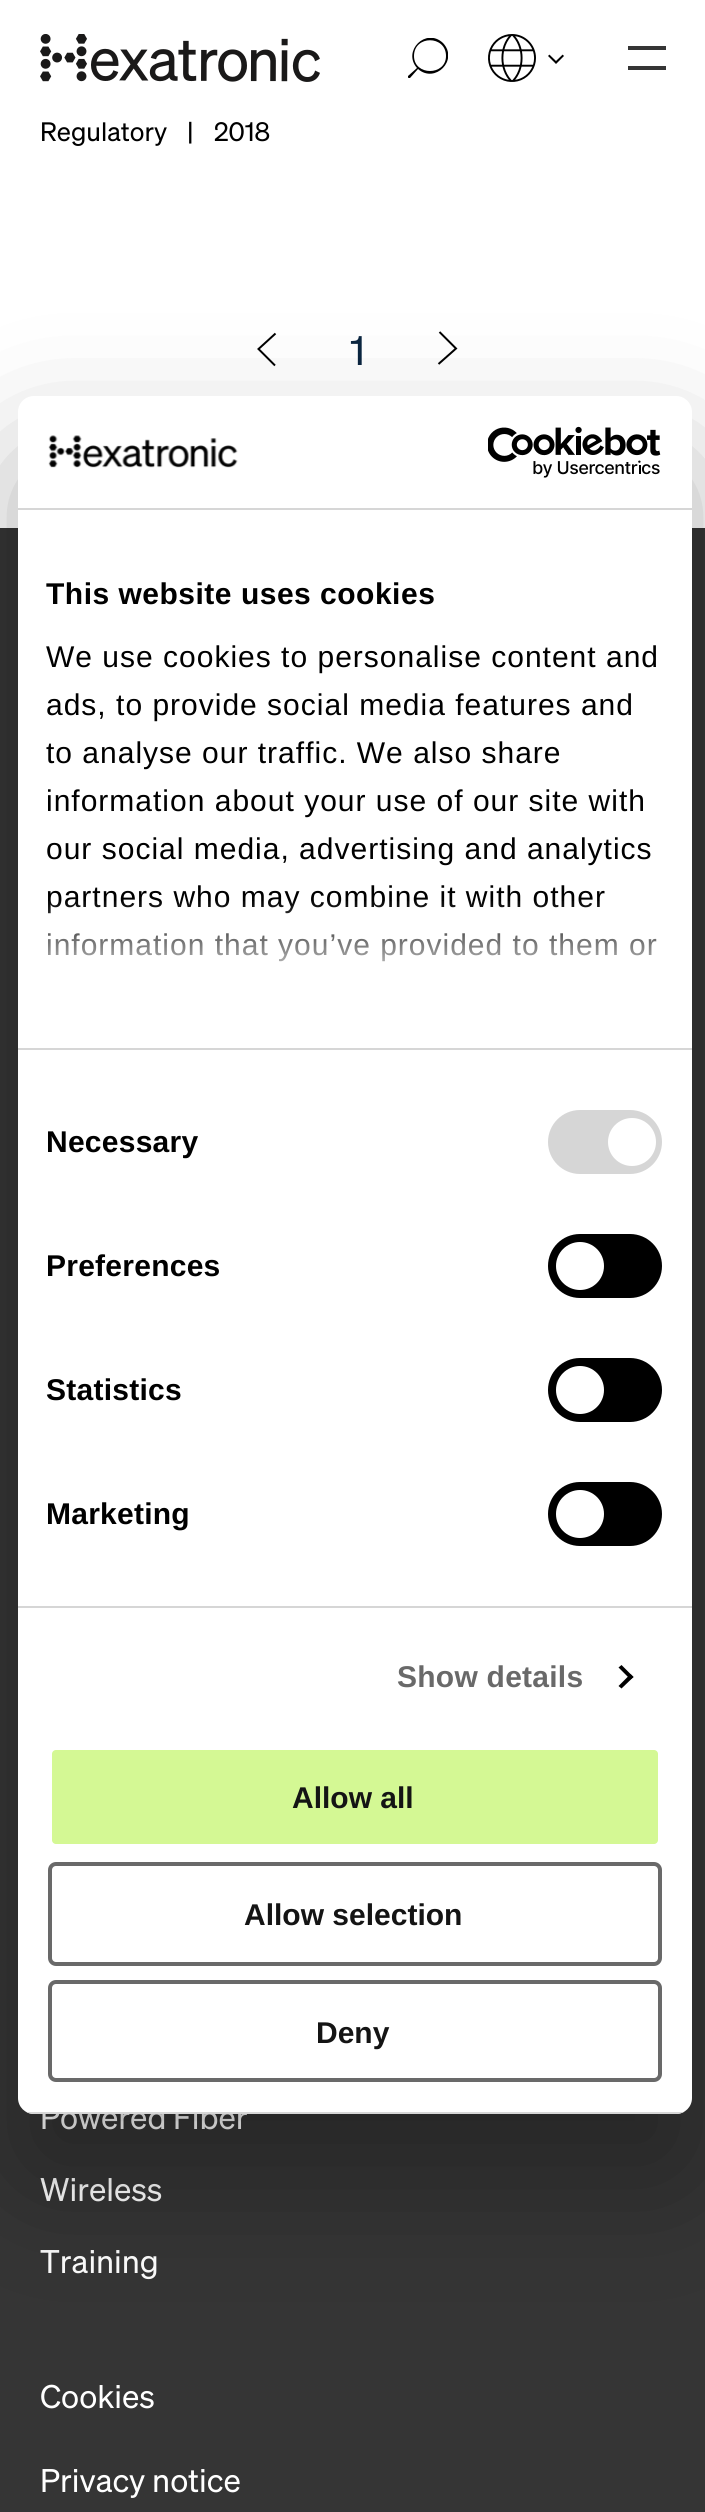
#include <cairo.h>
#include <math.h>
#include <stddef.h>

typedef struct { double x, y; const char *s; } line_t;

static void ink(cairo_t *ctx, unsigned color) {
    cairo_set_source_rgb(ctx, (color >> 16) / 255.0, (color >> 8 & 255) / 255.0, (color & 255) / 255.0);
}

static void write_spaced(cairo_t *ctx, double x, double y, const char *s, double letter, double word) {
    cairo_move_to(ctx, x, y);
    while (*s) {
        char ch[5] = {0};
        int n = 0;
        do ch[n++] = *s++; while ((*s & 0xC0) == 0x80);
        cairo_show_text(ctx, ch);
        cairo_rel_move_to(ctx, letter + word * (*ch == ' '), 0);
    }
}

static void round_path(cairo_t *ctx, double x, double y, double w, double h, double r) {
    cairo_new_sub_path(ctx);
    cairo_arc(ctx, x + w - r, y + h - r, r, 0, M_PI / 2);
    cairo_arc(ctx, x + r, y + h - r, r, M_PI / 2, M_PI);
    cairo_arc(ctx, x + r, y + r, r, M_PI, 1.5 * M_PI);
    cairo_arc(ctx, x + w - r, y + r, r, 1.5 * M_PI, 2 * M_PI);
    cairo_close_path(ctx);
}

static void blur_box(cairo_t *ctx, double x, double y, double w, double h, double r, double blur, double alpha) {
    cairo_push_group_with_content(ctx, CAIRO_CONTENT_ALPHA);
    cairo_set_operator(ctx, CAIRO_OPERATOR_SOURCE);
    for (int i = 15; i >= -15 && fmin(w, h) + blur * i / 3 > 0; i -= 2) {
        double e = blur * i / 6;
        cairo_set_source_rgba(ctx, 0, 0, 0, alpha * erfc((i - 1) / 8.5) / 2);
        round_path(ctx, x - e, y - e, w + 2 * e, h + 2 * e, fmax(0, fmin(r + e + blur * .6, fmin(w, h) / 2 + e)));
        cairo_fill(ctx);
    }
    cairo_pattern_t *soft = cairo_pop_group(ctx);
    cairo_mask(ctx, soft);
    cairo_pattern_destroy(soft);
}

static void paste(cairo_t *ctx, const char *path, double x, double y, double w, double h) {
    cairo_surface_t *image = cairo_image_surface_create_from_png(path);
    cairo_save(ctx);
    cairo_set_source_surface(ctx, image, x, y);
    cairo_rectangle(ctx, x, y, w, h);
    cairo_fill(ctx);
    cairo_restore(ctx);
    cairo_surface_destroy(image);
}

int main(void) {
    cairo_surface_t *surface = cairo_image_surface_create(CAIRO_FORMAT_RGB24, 705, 2512);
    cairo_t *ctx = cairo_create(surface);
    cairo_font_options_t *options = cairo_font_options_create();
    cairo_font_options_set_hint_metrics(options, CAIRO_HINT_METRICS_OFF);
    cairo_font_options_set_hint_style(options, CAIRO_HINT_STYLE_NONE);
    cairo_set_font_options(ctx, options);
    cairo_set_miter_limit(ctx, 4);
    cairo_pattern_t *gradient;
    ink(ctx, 0xFFFFFF);
    cairo_paint(ctx);
    paste(ctx, "media/1.png", 40, 34, 280, 48);
    cairo_save(ctx);
    cairo_rectangle(ctx, 408, 38, 40, 40);
    cairo_clip(ctx);
    ink(ctx, 0x000000);
    cairo_new_path(ctx);
    cairo_move_to(ctx, 410, 78);
    cairo_curve_to(ctx, 409, 79, 407, 77, 408, 76);
    cairo_line_to(ctx, 417, 68);
    cairo_curve_to(ctx, 402, 51, 426, 27, 443, 43);
    cairo_curve_to(ctx, 459, 60, 435, 84, 418, 69);
    cairo_close_path(ctx);
    cairo_move_to(ctx, 446, 56);
    cairo_curve_to(ctx, 446, 35, 414, 35, 414, 56);
    cairo_curve_to(ctx, 414, 76, 446, 76, 446, 56);
    cairo_close_path(ctx);
    cairo_fill(ctx);
    cairo_restore(ctx);
    paste(ctx, "media/2.png", 488, 34, 48, 48);
    paste(ctx, "media/3.png", 548, 54, 16, 10);
    ink(ctx, 0x353535);
    cairo_rectangle(ctx, 628, 46, 38, 4);
    cairo_fill(ctx);
    cairo_rectangle(ctx, 628, 66, 38, 4);
    cairo_fill(ctx);
    cairo_select_font_face(ctx, "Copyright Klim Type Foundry", CAIRO_FONT_SLANT_NORMAL, CAIRO_FONT_WEIGHT_NORMAL);
    cairo_set_font_size(ctx, 26);
    ink(ctx, 0x000000);
    {
        static const line_t items[] = {
            {40, 141, "Regulatory"},
            {187, 141, "|"},
            {214, 141, "2018"},
        };
        for (size_t i = 0; i < sizeof items / sizeof *items; i++) {
            cairo_move_to(ctx, items[i].x, items[i].y);
            cairo_show_text(ctx, items[i].s);
        }
    }
    cairo_new_path(ctx);
    cairo_move_to(ctx, 275, 365.5);
    cairo_line_to(ctx, 258.5, 349);
    cairo_line_to(ctx, 275.5, 333.5);
    cairo_stroke(ctx);
    cairo_set_font_size(ctx, 40);
    ink(ctx, 0x0A2540);
    cairo_move_to(ctx, 350, 365);
    cairo_show_text(ctx, "1");
    cairo_new_path(ctx);
    cairo_move_to(ctx, 439.5, 332);
    cairo_line_to(ctx, 456, 348.5);
    cairo_line_to(ctx, 438.5, 364);
    ink(ctx, 0x000000);
    cairo_stroke(ctx);
    ink(ctx, 0x353535);
    cairo_rectangle(ctx, 0, 528, 705, 1984);
    cairo_fill(ctx);
    cairo_set_font_size(ctx, 32);
    ink(ctx, 0xFFFFFF);
    {
        static const line_t items[] = {
            {40, 2129, "Powered Fiber"},
            {40, 2201, "Wireless"},
            {40, 2273, "Training"},
            {40, 2408, "Cookies"},
            {40, 2492, "Privacy notice"},
        };
        for (size_t i = 0; i < sizeof items / sizeof *items; i++) {
            cairo_move_to(ctx, items[i].x, items[i].y);
            cairo_show_text(ctx, items[i].s);
        }
    }
    ink(ctx, 0x000000);
    blur_box(ctx, 18, 460, 674, 1718, 16, 68, 0.3);
    ink(ctx, 0xFFFFFF);
    round_path(ctx, 18, 396, 674, 1718, 16);
    cairo_fill(ctx);
    ink(ctx, 0xD6D6D6);
    cairo_rectangle(ctx, 18, 508, 674, 2);
    cairo_fill(ctx);
    paste(ctx, "media/4.png", 48, 435, 190, 33);
    paste(ctx, "media/5.png", 488, 426, 173, 52);
    cairo_rectangle(ctx, 18, 1048, 674, 2);
    cairo_fill(ctx);
    cairo_select_font_face(ctx, "Liberation Sans", CAIRO_FONT_SLANT_NORMAL, CAIRO_FONT_WEIGHT_BOLD);
    cairo_set_font_size(ctx, 30);
    ink(ctx, 0x000000);
    write_spaced(ctx, 46, 604, "This website uses cookies", 0.5, 0);
    cairo_select_font_face(ctx, "Liberation Sans", CAIRO_FONT_SLANT_NORMAL, CAIRO_FONT_WEIGHT_NORMAL);
    {
        static const line_t items[] = {
            {46, 667, "We use cookies to personalise content and"},
            {46, 715, "ads, to provide social media features and"},
            {46, 763, "to analyse our traffic. We also share"},
            {46, 811, "information about your use of our site with"},
            {46, 859, "our social media, advertising and analytics"},
            {46, 907, "partners who may combine it with other"},
            {46, 955, "information that you’ve provided to them or"},
        };
        for (size_t i = 0; i < sizeof items / sizeof *items; i++) {
            write_spaced(ctx, items[i].x, items[i].y, items[i].s, 1, 0);
        }
    }
    gradient = cairo_pattern_create_linear(341, 1049, 341, 899);
    cairo_pattern_add_color_stop_rgba(gradient, 0, 1, 1, 1, 1);
    cairo_pattern_add_color_stop_rgba(gradient, 0.5, 1, 1, 1, 0.8);
    cairo_pattern_add_color_stop_rgba(gradient, 1, 1, 1, 1, 0);
    cairo_set_source(ctx, gradient);
    cairo_pattern_destroy(gradient);
    cairo_rectangle(ctx, 48, 901, 609, 61);
    cairo_fill(ctx);
    ink(ctx, 0xD6D6D6);
    cairo_rectangle(ctx, 18, 1606, 674, 2);
    cairo_fill(ctx);
    cairo_select_font_face(ctx, "Liberation Sans", CAIRO_FONT_SLANT_NORMAL, CAIRO_FONT_WEIGHT_BOLD);
    ink(ctx, 0x000000);
    write_spaced(ctx, 46, 1152, "Necessary", 0.25, 0);
    ink(ctx, 0xD6D6D6);
    round_path(ctx, 548, 1110, 114, 64, 32);
    cairo_fill(ctx);
    ink(ctx, 0xFFFFFF);
    cairo_arc(ctx, 632, 1142, 24, 0, 2 * M_PI);
    cairo_fill(ctx);
    ink(ctx, 0x000000);
    write_spaced(ctx, 46, 1276, "Preferences", 0.25, 0);
    round_path(ctx, 548, 1234, 114, 64, 32);
    cairo_fill(ctx);
    ink(ctx, 0xFFFFFF);
    cairo_arc(ctx, 580, 1266, 24, 0, 2 * M_PI);
    cairo_fill(ctx);
    ink(ctx, 0x000000);
    write_spaced(ctx, 46, 1400, "Statistics", 0.25, 0);
    round_path(ctx, 548, 1358, 114, 64, 32);
    cairo_fill(ctx);
    ink(ctx, 0xFFFFFF);
    cairo_arc(ctx, 580, 1390, 24, 0, 2 * M_PI);
    cairo_fill(ctx);
    ink(ctx, 0x000000);
    write_spaced(ctx, 46, 1524, "Marketing", 0.25, 0);
    round_path(ctx, 548, 1482, 114, 64, 32);
    cairo_fill(ctx);
    ink(ctx, 0xFFFFFF);
    cairo_arc(ctx, 580, 1514, 24, 0, 2 * M_PI);
    cairo_fill(ctx);
    ink(ctx, 0x696969);
    write_spaced(ctx, 397, 1687, "Show details", 0.25, 0);
    ink(ctx, 0x000000);
    cairo_new_path(ctx);
    cairo_move_to(ctx, 621.5, 1665);
    cairo_line_to(ctx, 633.5, 1677);
    cairo_line_to(ctx, 630.5, 1679.5);
    cairo_line_to(ctx, 618.5, 1667.5);
    cairo_close_path(ctx);
    cairo_fill(ctx);
    cairo_new_path(ctx);
    cairo_move_to(ctx, 630.5, 1674);
    cairo_line_to(ctx, 633.5, 1677);
    cairo_line_to(ctx, 621.5, 1688.5);
    cairo_line_to(ctx, 618.5, 1686);
    cairo_close_path(ctx);
    cairo_fill(ctx);
    cairo_save(ctx);
    round_path(ctx, 18, 396, 674, 1718, 16);
    cairo_clip(ctx);
    ink(ctx, 0xD6D6D6);
    cairo_rectangle(ctx, 18, 2112, 674, 2);
    cairo_fill(ctx);
    cairo_restore(ctx);
    ink(ctx, 0xD4F894);
    round_path(ctx, 50, 1748, 610, 98, 6);
    cairo_fill_preserve(ctx);
    ink(ctx, 0xFFFFFF);
    cairo_set_line_width(ctx, 4);
    cairo_stroke(ctx);
    ink(ctx, 0x141414);
    cairo_move_to(ctx, 292, 1808);
    cairo_show_text(ctx, "Allow all");
    round_path(ctx, 50, 1864, 610, 100, 6);
    ink(ctx, 0x696969);
    cairo_stroke(ctx);
    ink(ctx, 0x141414);
    cairo_move_to(ctx, 244, 1925);
    cairo_show_text(ctx, "Allow selection");
    round_path(ctx, 50, 1982, 610, 98, 6);
    ink(ctx, 0x696969);
    cairo_stroke(ctx);
    ink(ctx, 0x141414);
    cairo_move_to(ctx, 316, 2043);
    cairo_show_text(ctx, "Deny");
    cairo_surface_write_to_png(surface, "image.png");
    cairo_font_options_destroy(options);
    cairo_destroy(ctx);
    cairo_surface_destroy(surface);
    return 0;
}
